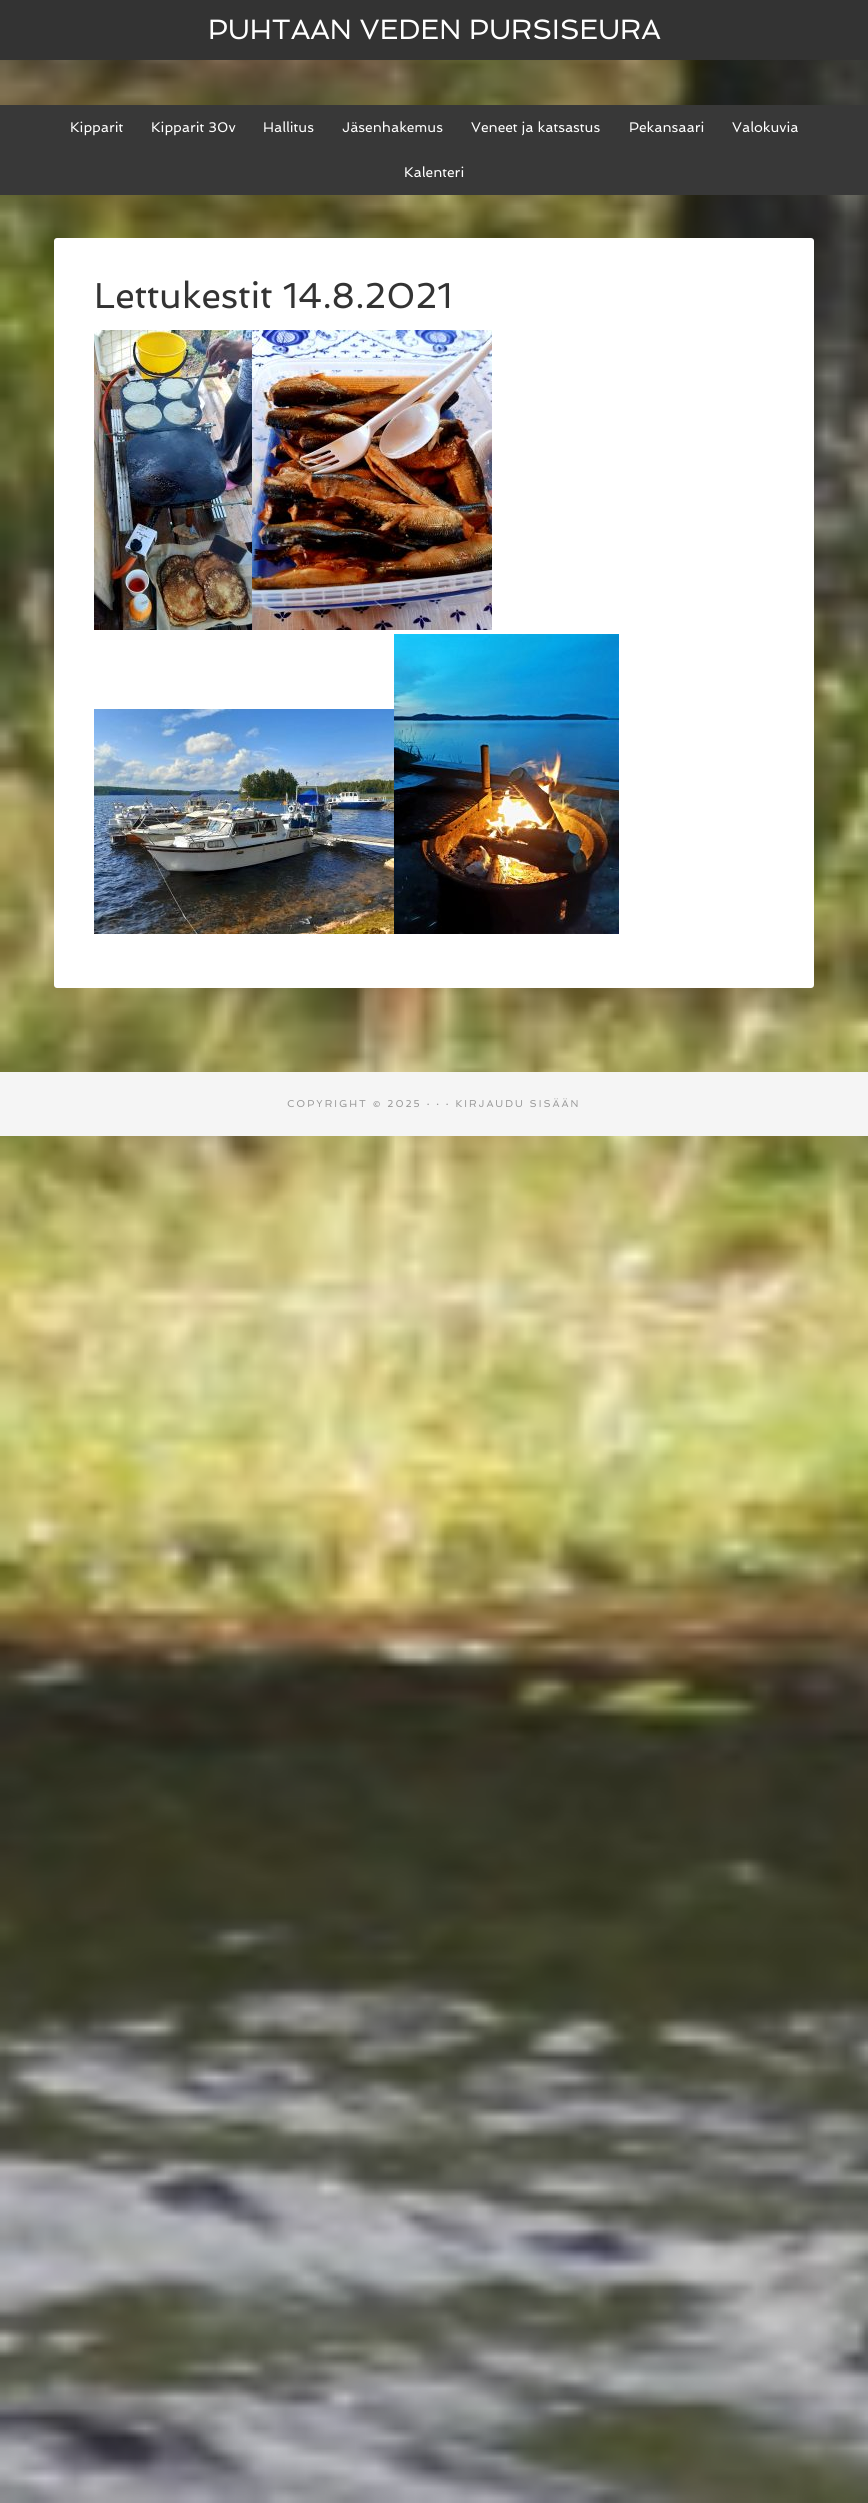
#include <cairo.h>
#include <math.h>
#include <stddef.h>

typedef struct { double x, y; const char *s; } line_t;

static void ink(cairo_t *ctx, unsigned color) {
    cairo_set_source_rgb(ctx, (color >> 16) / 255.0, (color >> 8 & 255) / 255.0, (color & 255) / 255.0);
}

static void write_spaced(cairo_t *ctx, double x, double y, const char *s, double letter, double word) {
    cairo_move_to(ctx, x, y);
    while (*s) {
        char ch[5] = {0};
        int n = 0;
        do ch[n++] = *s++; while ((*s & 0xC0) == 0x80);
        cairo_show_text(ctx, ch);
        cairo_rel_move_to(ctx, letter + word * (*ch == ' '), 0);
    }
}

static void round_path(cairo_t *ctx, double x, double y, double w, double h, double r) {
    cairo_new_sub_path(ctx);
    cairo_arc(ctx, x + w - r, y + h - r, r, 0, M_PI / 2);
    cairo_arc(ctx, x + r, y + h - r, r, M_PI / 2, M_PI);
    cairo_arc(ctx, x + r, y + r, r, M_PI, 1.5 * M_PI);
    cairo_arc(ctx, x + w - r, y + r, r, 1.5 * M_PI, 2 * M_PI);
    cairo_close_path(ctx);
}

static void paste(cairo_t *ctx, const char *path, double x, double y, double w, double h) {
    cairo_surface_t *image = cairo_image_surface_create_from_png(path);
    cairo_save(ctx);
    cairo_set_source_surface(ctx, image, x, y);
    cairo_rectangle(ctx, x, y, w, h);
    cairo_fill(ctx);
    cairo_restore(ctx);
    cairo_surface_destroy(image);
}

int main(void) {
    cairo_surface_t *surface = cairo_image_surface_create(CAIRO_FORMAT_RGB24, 868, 2503);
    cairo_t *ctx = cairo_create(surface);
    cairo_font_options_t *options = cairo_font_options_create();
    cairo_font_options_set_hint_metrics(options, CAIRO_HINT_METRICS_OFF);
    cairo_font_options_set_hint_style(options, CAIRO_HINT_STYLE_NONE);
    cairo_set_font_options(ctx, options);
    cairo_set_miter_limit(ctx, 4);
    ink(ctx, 0xFFFFFF);
    cairo_paint(ctx);
    ink(ctx, 0x333333);
    cairo_rectangle(ctx, 0, 0, 868, 60);
    cairo_fill(ctx);
    cairo_select_font_face(ctx, "Spinnaker", CAIRO_FONT_SLANT_NORMAL, CAIRO_FONT_WEIGHT_NORMAL);
    cairo_set_font_size(ctx, 28);
    ink(ctx, 0xFFFFFF);
    cairo_move_to(ctx, 208, 39);
    cairo_show_text(ctx, "PUHTAAN VEDEN PURSISEURA");
    paste(ctx, "media/1.png", 0, 60, 868, 2443);
    ink(ctx, 0x383838);
    cairo_rectangle(ctx, 0, 105, 868, 90);
    cairo_fill(ctx);
    cairo_set_font_size(ctx, 14);
    ink(ctx, 0xFFFFFF);
    {
        static const line_t items[] = {
            {70, 132, "Kipparit"},
            {151, 132, "Kipparit 30v"},
            {263, 132, "Hallitus"},
            {342, 132, "Jäsenhakemus"},
            {471, 132, "Veneet ja katsastus"},
            {629, 132, "Pekansaari"},
            {732, 132, "Valokuvia"},
            {404, 177, "Kalenteri"},
        };
        for (size_t i = 0; i < sizeof items / sizeof *items; i++) {
            cairo_move_to(ctx, items[i].x, items[i].y);
            cairo_show_text(ctx, items[i].s);
        }
    }
    round_path(ctx, 54, 238, 760, 750, 3);
    cairo_fill(ctx);
    cairo_set_font_size(ctx, 36);
    ink(ctx, 0x333333);
    cairo_move_to(ctx, 94, 308);
    cairo_show_text(ctx, "Lettukestit 14.8.2021");
    paste(ctx, "media/2.png", 94, 330, 158, 300);
    paste(ctx, "media/3.png", 252, 330, 240, 300);
    paste(ctx, "media/4.png", 94, 709, 300, 225);
    paste(ctx, "media/5.png", 394, 634, 225, 300);
    ink(ctx, 0xF5F5F5);
    cairo_rectangle(ctx, 0, 1072, 868, 64);
    cairo_fill(ctx);
    cairo_set_font_size(ctx, 10);
    ink(ctx, 0x999999);
    write_spaced(ctx, 287, 1107, "COPYRIGHT © 2025 · · · KIRJAUDU SISÄÄN", 2, 0);
    cairo_surface_write_to_png(surface, "image.png");
    cairo_font_options_destroy(options);
    cairo_destroy(ctx);
    cairo_surface_destroy(surface);
    return 0;
}
